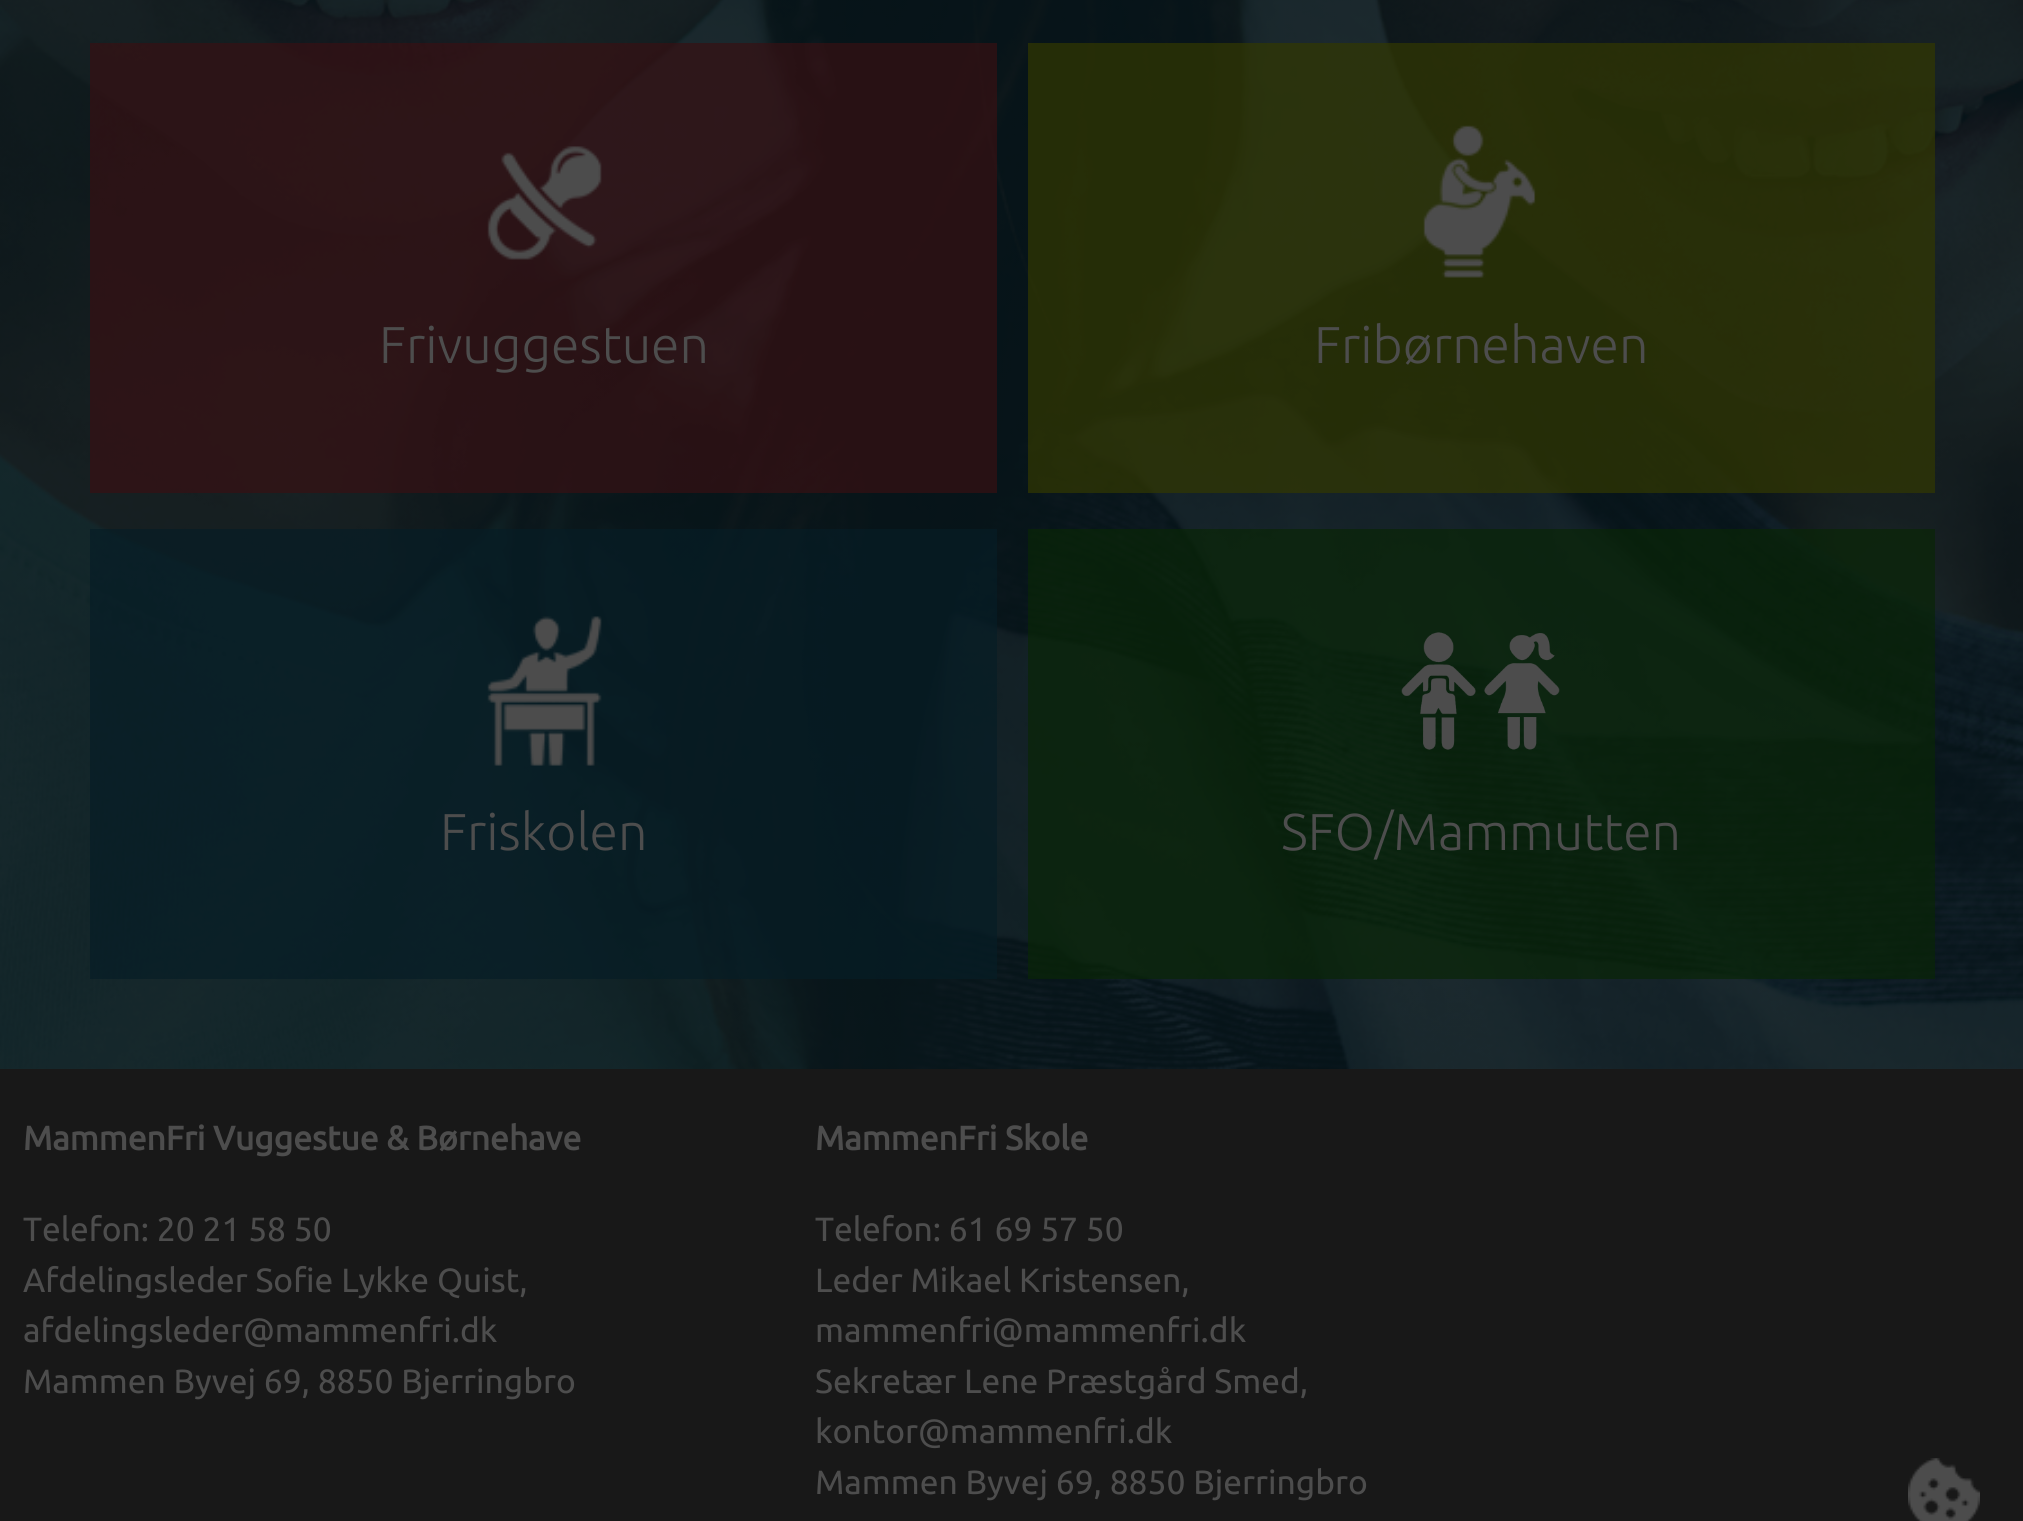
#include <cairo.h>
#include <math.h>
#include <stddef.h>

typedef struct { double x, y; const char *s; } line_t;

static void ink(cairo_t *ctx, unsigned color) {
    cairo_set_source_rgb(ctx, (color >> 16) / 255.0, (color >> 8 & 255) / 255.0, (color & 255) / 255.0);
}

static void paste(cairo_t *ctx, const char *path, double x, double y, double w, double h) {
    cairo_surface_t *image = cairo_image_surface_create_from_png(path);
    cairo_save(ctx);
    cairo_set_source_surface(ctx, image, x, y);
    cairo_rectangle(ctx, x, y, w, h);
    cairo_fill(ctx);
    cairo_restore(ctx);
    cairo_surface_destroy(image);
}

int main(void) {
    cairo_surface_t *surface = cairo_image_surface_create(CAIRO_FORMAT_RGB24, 2023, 1521);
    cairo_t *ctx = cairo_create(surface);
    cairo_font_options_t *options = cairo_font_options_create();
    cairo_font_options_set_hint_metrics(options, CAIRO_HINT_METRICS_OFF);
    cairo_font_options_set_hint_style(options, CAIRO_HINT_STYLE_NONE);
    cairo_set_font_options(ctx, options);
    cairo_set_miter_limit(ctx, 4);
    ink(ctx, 0xFFFFFF);
    cairo_paint(ctx);
    paste(ctx, "media/1.png", 0, 0, 2023, 1069);
    cairo_set_source_rgba(ctx, 0.216, 0.063, 0.075, 0.7);
    cairo_rectangle(ctx, 90, 43, 907, 450);
    cairo_fill(ctx);
    paste(ctx, "media/2.png", 487, 146, 115, 114);
    cairo_select_font_face(ctx, "Ubuntu Light", CAIRO_FONT_SLANT_NORMAL, CAIRO_FONT_WEIGHT_NORMAL);
    cairo_set_font_size(ctx, 51.75);
    ink(ctx, 0x4D4D4D);
    cairo_move_to(ctx, 379, 363);
    cairo_show_text(ctx, "Frivuggestuen");
    cairo_set_source_rgba(ctx, 0.2, 0.22, 0.004, 0.7);
    cairo_rectangle(ctx, 1028, 43, 907, 450);
    cairo_fill(ctx);
    paste(ctx, "media/3.png", 1423, 125, 113, 153);
    ink(ctx, 0x4D4D4D);
    cairo_move_to(ctx, 1314, 363);
    cairo_show_text(ctx, "Fribørnehaven");
    cairo_set_source_rgba(ctx, 0.027, 0.114, 0.149, 0.7);
    cairo_rectangle(ctx, 90, 529, 907, 450);
    cairo_fill(ctx);
    paste(ctx, "media/4.png", 487, 616, 115, 150);
    ink(ctx, 0x4D4D4D);
    cairo_move_to(ctx, 440, 850);
    cairo_show_text(ctx, "Friskolen");
    cairo_set_source_rgba(ctx, 0.035, 0.149, 0.027, 0.7);
    cairo_rectangle(ctx, 1028, 529, 907, 450);
    cairo_fill(ctx);
    paste(ctx, "media/5.png", 1401, 632, 159, 118);
    ink(ctx, 0x4D4D4D);
    cairo_move_to(ctx, 1281, 850);
    cairo_show_text(ctx, "SFO/Mammutten");
    ink(ctx, 0x181818);
    cairo_rectangle(ctx, 0, 1069, 2023, 452);
    cairo_fill(ctx);
    cairo_select_font_face(ctx, "Ubuntu", CAIRO_FONT_SLANT_NORMAL, CAIRO_FONT_WEIGHT_BOLD);
    cairo_set_font_size(ctx, 33.6);
    ink(ctx, 0x4D4D4D);
    cairo_move_to(ctx, 23, 1150);
    cairo_show_text(ctx, "MammenFri Vuggestue & Børnehave");
    cairo_select_font_face(ctx, "Ubuntu", CAIRO_FONT_SLANT_NORMAL, CAIRO_FONT_WEIGHT_NORMAL);
    {
        static const line_t items[] = {
            {23, 1241, "Telefon: 20 21 58 50"},
            {23, 1292, "Afdelingsleder Sofie Lykke Quist,"},
            {23, 1342, "afdelingsleder@mammenfri.dk"},
            {23, 1393, "Mammen Byvej 69, 8850 Bjerringbro"},
        };
        for (size_t i = 0; i < sizeof items / sizeof *items; i++) {
            cairo_move_to(ctx, items[i].x, items[i].y);
            cairo_show_text(ctx, items[i].s);
        }
    }
    cairo_select_font_face(ctx, "Ubuntu", CAIRO_FONT_SLANT_NORMAL, CAIRO_FONT_WEIGHT_BOLD);
    cairo_move_to(ctx, 815, 1150);
    cairo_show_text(ctx, "MammenFri Skole");
    cairo_select_font_face(ctx, "Ubuntu", CAIRO_FONT_SLANT_NORMAL, CAIRO_FONT_WEIGHT_NORMAL);
    {
        static const line_t items[] = {
            {815, 1241, "Telefon: 61 69 57 50"},
            {815, 1292, "Leder Mikael Kristensen,"},
            {815, 1342, "mammenfri@mammenfri.dk"},
            {815, 1393, "Sekretær Lene Præstgård Smed,"},
            {815, 1443, "kontor@mammenfri.dk"},
            {815, 1494, "Mammen Byvej 69, 8850 Bjerringbro"},
        };
        for (size_t i = 0; i < sizeof items / sizeof *items; i++) {
            cairo_move_to(ctx, items[i].x, items[i].y);
            cairo_show_text(ctx, items[i].s);
        }
    }
    paste(ctx, "media/6.png", 1908, 1458, 72, 63);
    cairo_surface_write_to_png(surface, "image.png");
    cairo_font_options_destroy(options);
    cairo_destroy(ctx);
    cairo_surface_destroy(surface);
    return 0;
}
